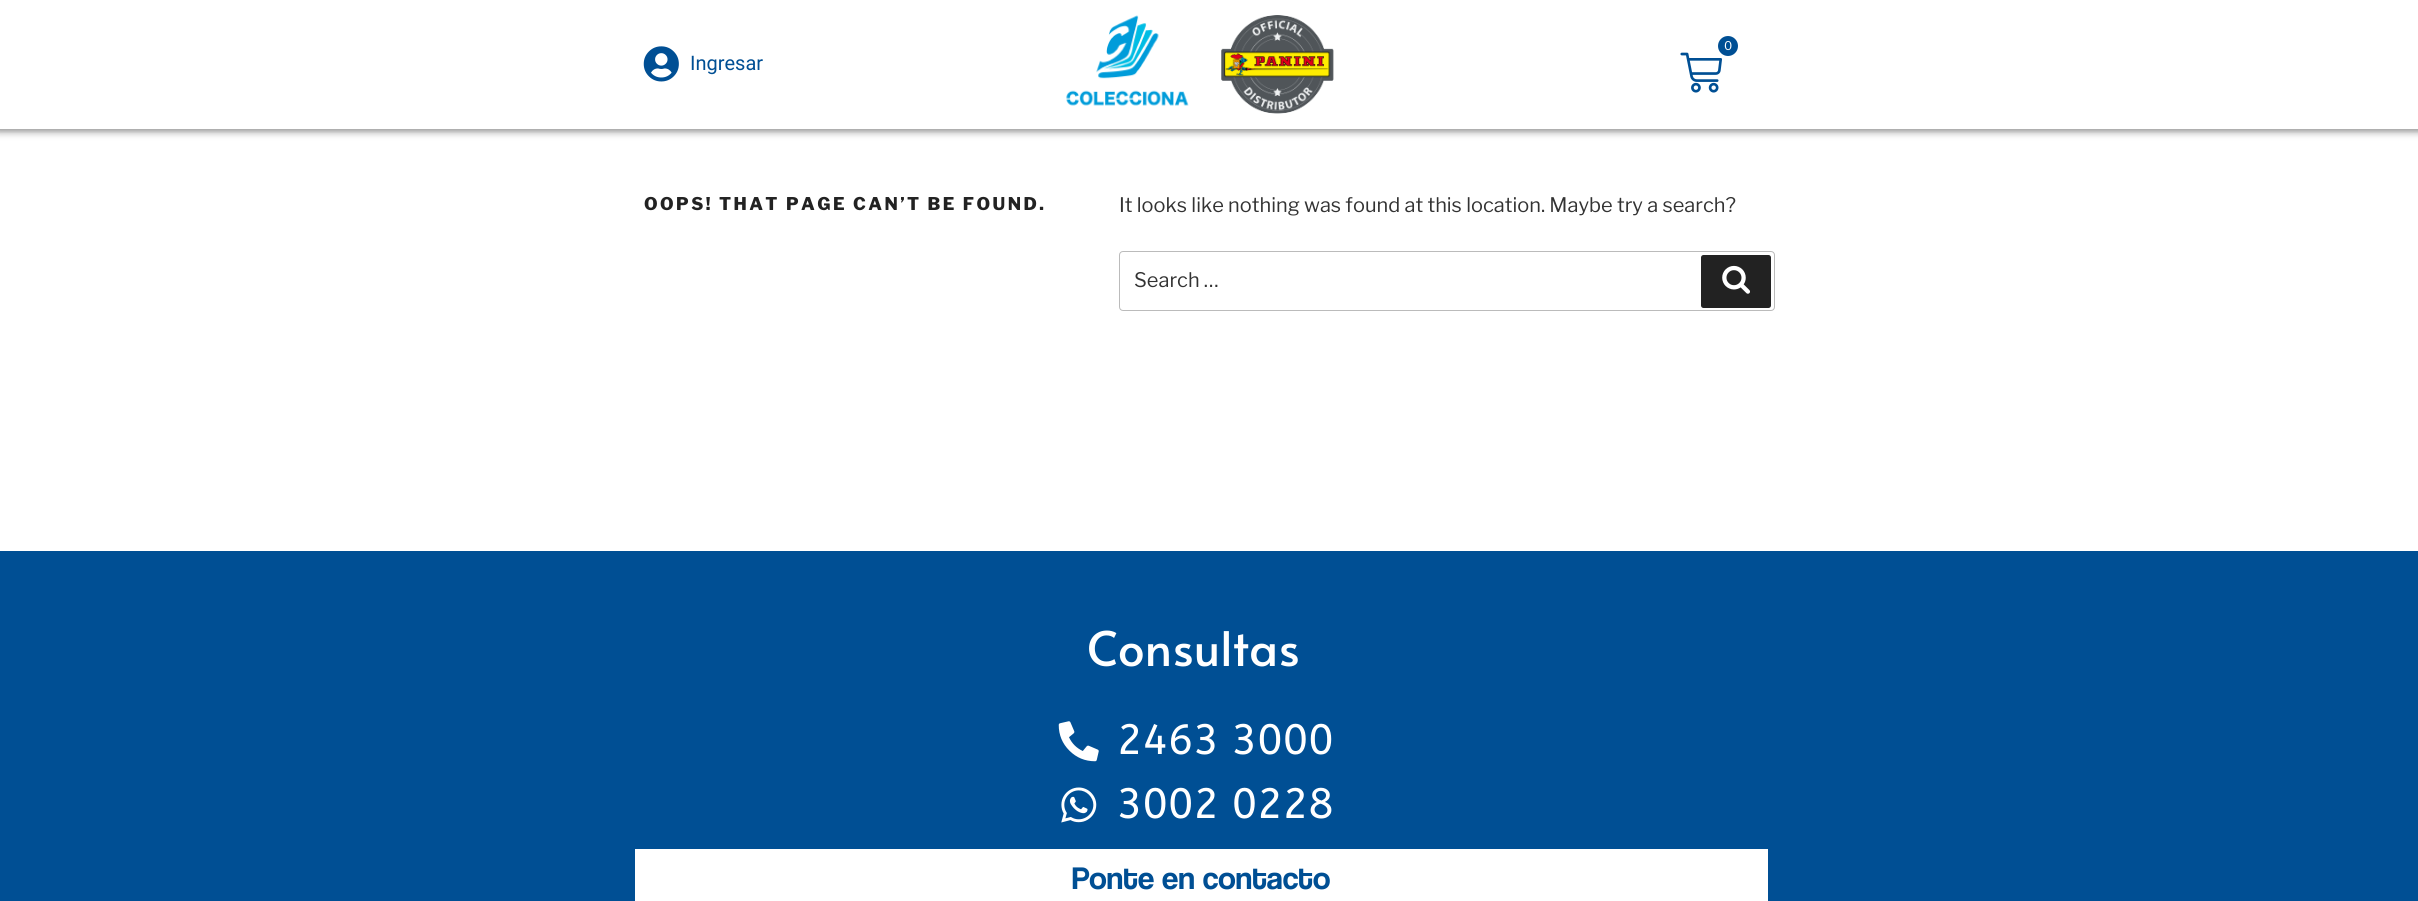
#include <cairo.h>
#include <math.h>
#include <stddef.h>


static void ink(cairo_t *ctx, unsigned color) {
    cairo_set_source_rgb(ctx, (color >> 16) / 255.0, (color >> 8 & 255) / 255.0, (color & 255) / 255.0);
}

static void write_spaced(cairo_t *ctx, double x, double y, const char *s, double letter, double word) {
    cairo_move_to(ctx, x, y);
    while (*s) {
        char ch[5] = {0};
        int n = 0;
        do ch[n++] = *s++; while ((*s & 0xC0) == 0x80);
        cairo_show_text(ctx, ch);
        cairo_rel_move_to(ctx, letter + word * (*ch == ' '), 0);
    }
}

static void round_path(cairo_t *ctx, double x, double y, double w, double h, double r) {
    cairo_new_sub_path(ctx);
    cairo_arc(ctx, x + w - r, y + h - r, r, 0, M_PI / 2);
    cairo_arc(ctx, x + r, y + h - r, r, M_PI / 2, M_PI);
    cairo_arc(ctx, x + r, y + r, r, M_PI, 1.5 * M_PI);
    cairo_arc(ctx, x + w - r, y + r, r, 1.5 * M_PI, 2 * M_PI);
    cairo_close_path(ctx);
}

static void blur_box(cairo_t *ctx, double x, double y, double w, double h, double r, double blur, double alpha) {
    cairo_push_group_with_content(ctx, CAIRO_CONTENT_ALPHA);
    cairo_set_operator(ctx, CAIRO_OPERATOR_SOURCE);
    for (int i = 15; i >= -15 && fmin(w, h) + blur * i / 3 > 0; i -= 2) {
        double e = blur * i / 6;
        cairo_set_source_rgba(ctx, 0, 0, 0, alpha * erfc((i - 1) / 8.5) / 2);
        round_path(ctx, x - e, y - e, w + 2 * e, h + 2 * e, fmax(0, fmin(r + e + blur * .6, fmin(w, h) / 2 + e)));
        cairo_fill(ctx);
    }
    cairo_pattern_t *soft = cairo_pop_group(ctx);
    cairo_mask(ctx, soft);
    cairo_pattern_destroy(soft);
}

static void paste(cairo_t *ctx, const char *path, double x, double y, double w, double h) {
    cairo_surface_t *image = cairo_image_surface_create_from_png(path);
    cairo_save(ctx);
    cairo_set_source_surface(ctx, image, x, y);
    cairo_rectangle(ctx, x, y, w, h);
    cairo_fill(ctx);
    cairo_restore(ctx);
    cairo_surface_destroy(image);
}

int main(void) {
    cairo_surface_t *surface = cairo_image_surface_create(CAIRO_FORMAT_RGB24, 2418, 901);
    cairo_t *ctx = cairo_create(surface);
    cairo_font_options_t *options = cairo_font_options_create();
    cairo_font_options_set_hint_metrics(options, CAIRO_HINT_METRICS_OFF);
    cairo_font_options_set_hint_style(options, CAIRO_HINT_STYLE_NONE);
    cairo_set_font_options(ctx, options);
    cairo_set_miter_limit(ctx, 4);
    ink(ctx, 0xFFFFFF);
    cairo_paint(ctx);
    ink(ctx, 0x000000);
    blur_box(ctx, -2, -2, 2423, 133, 0, 4, 0.5);
    ink(ctx, 0xFFFFFF);
    cairo_rectangle(ctx, 0, 0, 2418, 129);
    cairo_fill(ctx);
    paste(ctx, "media/1.png", 1066, 15, 123, 91);
    paste(ctx, "media/2.png", 1221, 15, 113, 99);
    paste(ctx, "media/3.png", 1680, 52, 42, 41);
    ink(ctx, 0x004F94);
    cairo_arc(ctx, 1728, 46, 10, 0, 2 * M_PI);
    cairo_fill(ctx);
    cairo_select_font_face(ctx, "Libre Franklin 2 Thin", CAIRO_FONT_SLANT_NORMAL, CAIRO_FONT_WEIGHT_NORMAL);
    cairo_set_font_size(ctx, 12);
    ink(ctx, 0xFFFFFF);
    cairo_move_to(ctx, 1724, 50);
    cairo_show_text(ctx, "0");
    paste(ctx, "media/4.png", 643, 46, 36, 36);
    cairo_select_font_face(ctx, "Roboto", CAIRO_FONT_SLANT_NORMAL, CAIRO_FONT_WEIGHT_NORMAL);
    cairo_set_font_size(ctx, 20);
    ink(ctx, 0x004F94);
    cairo_move_to(ctx, 690, 70);
    cairo_show_text(ctx, "Ingresar");
    cairo_select_font_face(ctx, "Libre Franklin Thin", CAIRO_FONT_SLANT_NORMAL, CAIRO_FONT_WEIGHT_NORMAL);
    cairo_set_font_size(ctx, 17.5);
    ink(ctx, 0x222222);
    write_spaced(ctx, 644, 210, "OOPS! THAT PAGE CAN’T BE FOUND.", 2.45, 0);
    cairo_select_font_face(ctx, "Libre Franklin 2 Thin", CAIRO_FONT_SLANT_NORMAL, CAIRO_FONT_WEIGHT_NORMAL);
    cairo_set_font_size(ctx, 20);
    ink(ctx, 0x333333);
    cairo_move_to(ctx, 1119, 212);
    cairo_show_text(ctx, "It looks like nothing was found at this location. Maybe try a search?");
    round_path(ctx, 1119.5, 251.5, 655, 59, 3.5);
    ink(ctx, 0xBBBBBB);
    cairo_set_line_width(ctx, 1);
    cairo_stroke(ctx);
    ink(ctx, 0x333333);
    cairo_move_to(ctx, 1134, 287);
    cairo_show_text(ctx, "Search …");
    ink(ctx, 0x222222);
    round_path(ctx, 1701, 255, 70, 53, 2.5);
    cairo_fill(ctx);
    paste(ctx, "media/5.png", 1722, 265, 28, 29);
    ink(ctx, 0x004F94);
    cairo_rectangle(ctx, 0, 551, 2418, 350);
    cairo_fill(ctx);
    cairo_select_font_face(ctx, "Alata", CAIRO_FONT_SLANT_NORMAL, CAIRO_FONT_WEIGHT_NORMAL);
    cairo_set_font_size(ctx, 47.5);
    ink(ctx, 0xFFFFFF);
    cairo_move_to(ctx, 1087, 666);
    cairo_show_text(ctx, "Consultas");
    paste(ctx, "media/6.png", 1058, 721, 41, 41);
    cairo_select_font_face(ctx, "ABeeZee", CAIRO_FONT_SLANT_NORMAL, CAIRO_FONT_WEIGHT_NORMAL);
    cairo_set_font_size(ctx, 42.5);
    cairo_move_to(ctx, 1117, 754);
    cairo_show_text(ctx, "2463 3000");
    paste(ctx, "media/7.png", 1061, 787, 36, 36);
    cairo_move_to(ctx, 1117, 818);
    cairo_show_text(ctx, "3002 0228");
    cairo_rectangle(ctx, 635, 849, 1133, 52);
    cairo_fill(ctx);
    cairo_select_font_face(ctx, "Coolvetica", CAIRO_FONT_SLANT_NORMAL, CAIRO_FONT_WEIGHT_NORMAL);
    cairo_set_font_size(ctx, 32.5);
    ink(ctx, 0x004F94);
    cairo_move_to(ctx, 1072, 889);
    cairo_show_text(ctx, "Ponte en contacto");
    cairo_surface_write_to_png(surface, "image.png");
    cairo_font_options_destroy(options);
    cairo_destroy(ctx);
    cairo_surface_destroy(surface);
    return 0;
}
